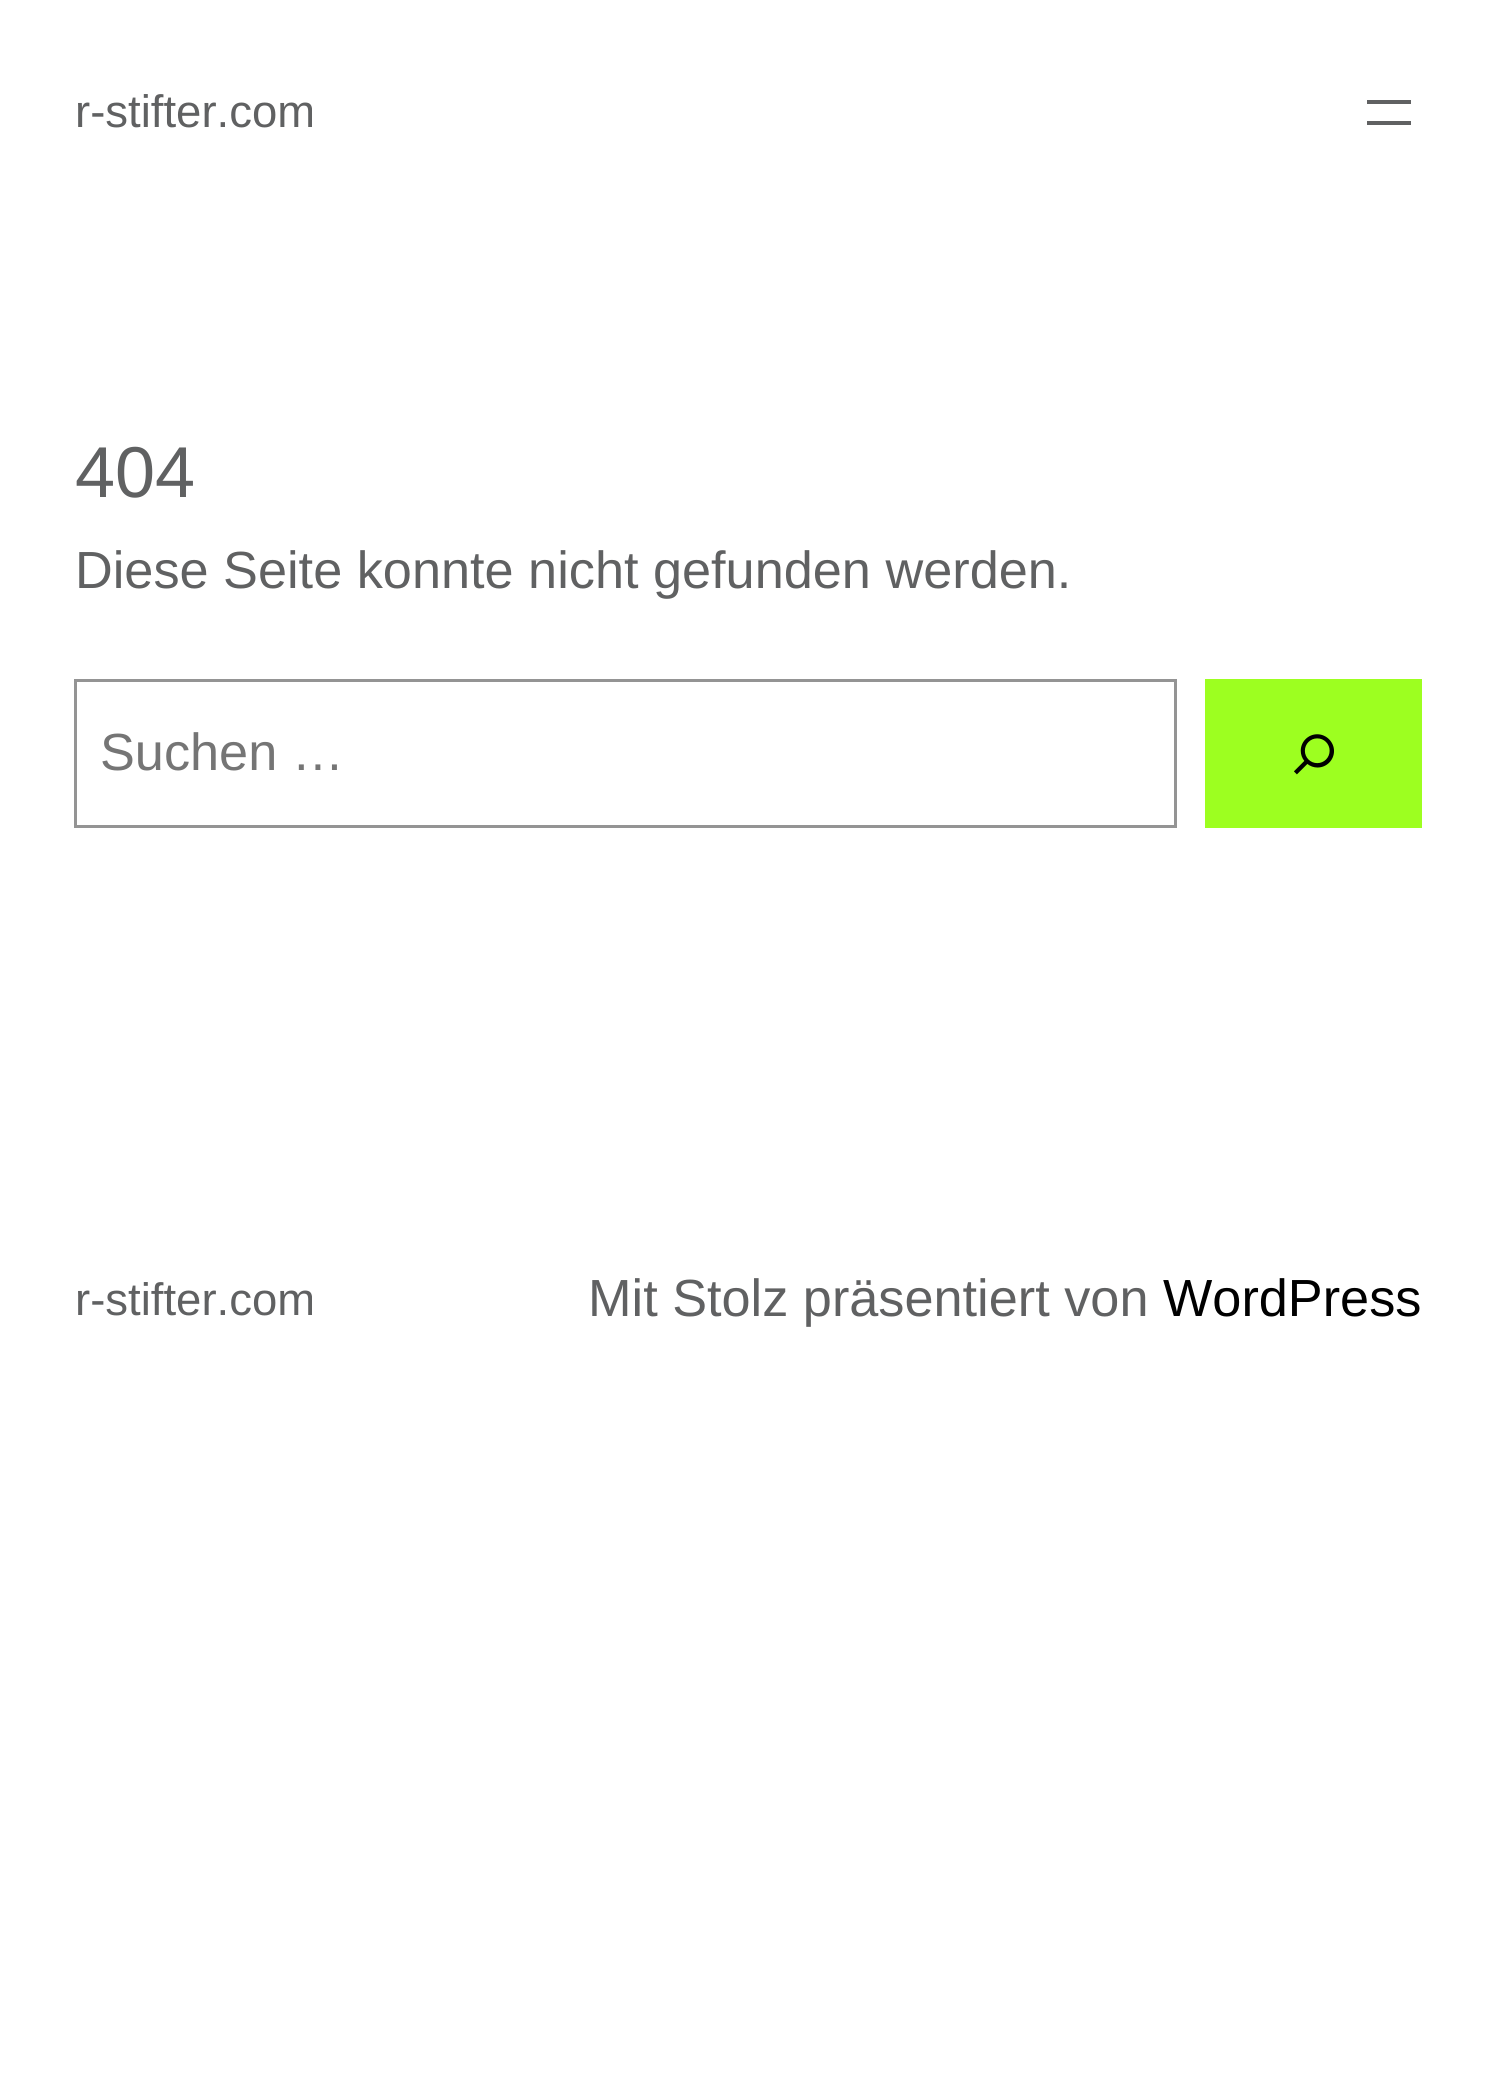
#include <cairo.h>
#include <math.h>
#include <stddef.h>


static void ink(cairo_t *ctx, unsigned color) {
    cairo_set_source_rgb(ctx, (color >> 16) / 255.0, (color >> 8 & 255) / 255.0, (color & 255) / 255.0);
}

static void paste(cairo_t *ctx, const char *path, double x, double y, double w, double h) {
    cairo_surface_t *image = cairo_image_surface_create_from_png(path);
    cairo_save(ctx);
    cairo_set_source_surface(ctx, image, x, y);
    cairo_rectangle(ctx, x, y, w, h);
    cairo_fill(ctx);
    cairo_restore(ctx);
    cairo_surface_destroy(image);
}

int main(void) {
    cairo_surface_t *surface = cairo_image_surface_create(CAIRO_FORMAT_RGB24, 1494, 2090);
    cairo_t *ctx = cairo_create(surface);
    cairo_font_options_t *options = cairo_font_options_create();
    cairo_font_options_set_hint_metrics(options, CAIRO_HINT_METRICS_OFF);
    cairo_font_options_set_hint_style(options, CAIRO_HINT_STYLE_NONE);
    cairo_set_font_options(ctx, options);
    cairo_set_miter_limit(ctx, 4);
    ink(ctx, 0xFFFFFF);
    cairo_paint(ctx);
    cairo_select_font_face(ctx, "Liberation Sans", CAIRO_FONT_SLANT_NORMAL, CAIRO_FONT_WEIGHT_NORMAL);
    cairo_set_font_size(ctx, 45.5);
    ink(ctx, 0x606162);
    cairo_move_to(ctx, 75, 127);
    cairo_show_text(ctx, "r-stifter.com");
    cairo_rectangle(ctx, 1367, 100, 44, 4);
    cairo_fill(ctx);
    cairo_rectangle(ctx, 1367, 121, 44, 4);
    cairo_fill(ctx);
    cairo_set_font_size(ctx, 72);
    cairo_move_to(ctx, 75, 497);
    cairo_show_text(ctx, "404");
    cairo_set_font_size(ctx, 52.25);
    cairo_move_to(ctx, 75, 588);
    cairo_show_text(ctx, "Diese Seite konnte nicht gefunden werden.");
    cairo_rectangle(ctx, 75.5, 680.5, 1100, 146);
    ink(ctx, 0x949494);
    cairo_set_line_width(ctx, 3);
    cairo_stroke(ctx);
    ink(ctx, 0x757575);
    cairo_move_to(ctx, 100, 770);
    cairo_show_text(ctx, "Suchen …");
    ink(ctx, 0x9DFF20);
    cairo_rectangle(ctx, 1205, 679, 217, 149);
    cairo_fill(ctx);
    paste(ctx, "media/1.png", 1294, 734, 40, 41);
    cairo_set_font_size(ctx, 45.5);
    ink(ctx, 0x606162);
    cairo_move_to(ctx, 75, 1315);
    cairo_show_text(ctx, "r-stifter.com");
    cairo_set_font_size(ctx, 52.25);
    cairo_move_to(ctx, 588, 1316);
    cairo_show_text(ctx, "Mit Stolz präsentiert von");
    ink(ctx, 0x000000);
    cairo_move_to(ctx, 1163, 1316);
    cairo_show_text(ctx, "WordPress");
    cairo_surface_write_to_png(surface, "image.png");
    cairo_font_options_destroy(options);
    cairo_destroy(ctx);
    cairo_surface_destroy(surface);
    return 0;
}
